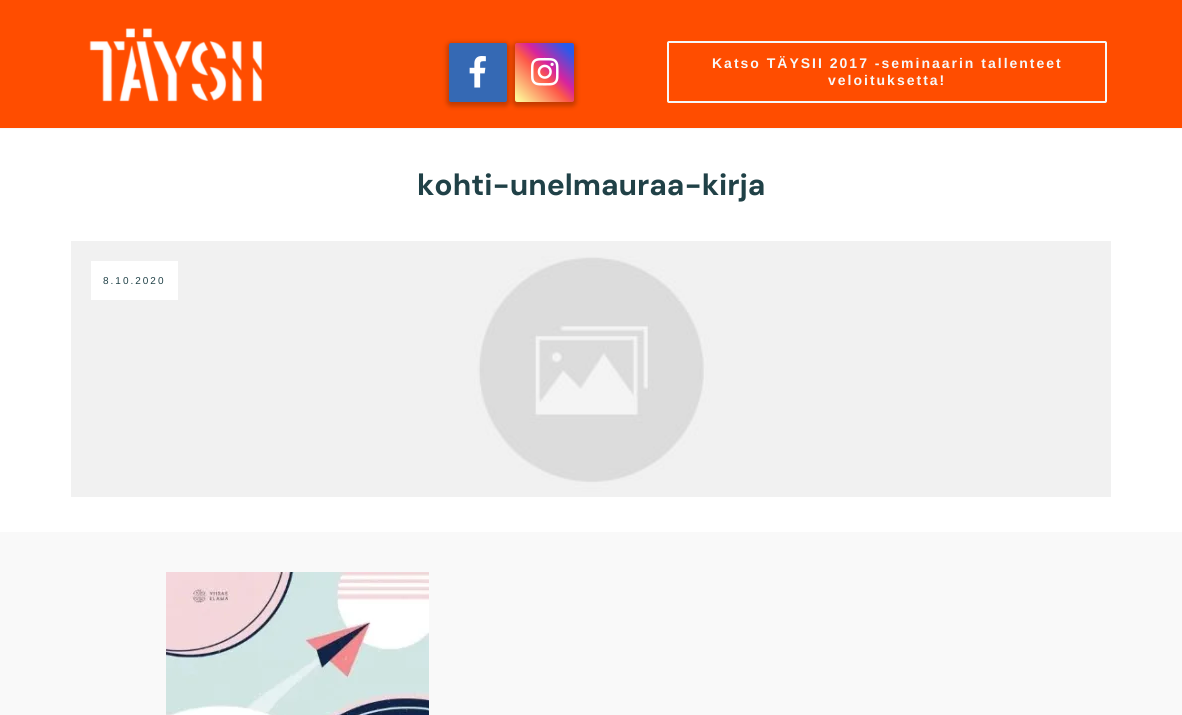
#include <cairo.h>
#include <math.h>
#include <stddef.h>


static void ink(cairo_t *ctx, unsigned color) {
    cairo_set_source_rgb(ctx, (color >> 16) / 255.0, (color >> 8 & 255) / 255.0, (color & 255) / 255.0);
}

static void write_spaced(cairo_t *ctx, double x, double y, const char *s, double letter, double word) {
    cairo_move_to(ctx, x, y);
    while (*s) {
        char ch[5] = {0};
        int n = 0;
        do ch[n++] = *s++; while ((*s & 0xC0) == 0x80);
        cairo_show_text(ctx, ch);
        cairo_rel_move_to(ctx, letter + word * (*ch == ' '), 0);
    }
}

static void round_path(cairo_t *ctx, double x, double y, double w, double h, double r) {
    cairo_new_sub_path(ctx);
    cairo_arc(ctx, x + w - r, y + h - r, r, 0, M_PI / 2);
    cairo_arc(ctx, x + r, y + h - r, r, M_PI / 2, M_PI);
    cairo_arc(ctx, x + r, y + r, r, M_PI, 1.5 * M_PI);
    cairo_arc(ctx, x + w - r, y + r, r, 1.5 * M_PI, 2 * M_PI);
    cairo_close_path(ctx);
}

static void blur_box(cairo_t *ctx, double x, double y, double w, double h, double r, double blur, double alpha) {
    cairo_push_group_with_content(ctx, CAIRO_CONTENT_ALPHA);
    cairo_set_operator(ctx, CAIRO_OPERATOR_SOURCE);
    for (int i = 15; i >= -15 && fmin(w, h) + blur * i / 3 > 0; i -= 2) {
        double e = blur * i / 6;
        cairo_set_source_rgba(ctx, 0, 0, 0, alpha * erfc((i - 1) / 8.5) / 2);
        round_path(ctx, x - e, y - e, w + 2 * e, h + 2 * e, fmax(0, fmin(r + e + blur * .6, fmin(w, h) / 2 + e)));
        cairo_fill(ctx);
    }
    cairo_pattern_t *soft = cairo_pop_group(ctx);
    cairo_mask(ctx, soft);
    cairo_pattern_destroy(soft);
}

static void paste(cairo_t *ctx, const char *path, double x, double y, double w, double h) {
    cairo_surface_t *image = cairo_image_surface_create_from_png(path);
    cairo_save(ctx);
    cairo_set_source_surface(ctx, image, x, y);
    cairo_rectangle(ctx, x, y, w, h);
    cairo_fill(ctx);
    cairo_restore(ctx);
    cairo_surface_destroy(image);
}

int main(void) {
    cairo_surface_t *surface = cairo_image_surface_create(CAIRO_FORMAT_RGB24, 1182, 715);
    cairo_t *ctx = cairo_create(surface);
    cairo_font_options_t *options = cairo_font_options_create();
    cairo_font_options_set_hint_metrics(options, CAIRO_HINT_METRICS_OFF);
    cairo_font_options_set_hint_style(options, CAIRO_HINT_STYLE_NONE);
    cairo_set_font_options(ctx, options);
    cairo_set_miter_limit(ctx, 4);
    cairo_pattern_t *gradient;
    ink(ctx, 0xF9F9F9);
    cairo_paint(ctx);
    ink(ctx, 0xFF4D00);
    cairo_rectangle(ctx, 0, 0, 1182, 128);
    cairo_fill(ctx);
    paste(ctx, "media/1.png", 89, 28, 173, 74);
    ink(ctx, 0x000000);
    blur_box(ctx, 447, 43, 62, 63, 4, 2.5, 0.25);
    ink(ctx, 0x3569B4);
    round_path(ctx, 449, 43, 58, 59, 2);
    cairo_fill(ctx);
    paste(ctx, "media/2.png", 469, 56, 17, 32);
    ink(ctx, 0x000000);
    blur_box(ctx, 513, 43, 63, 63, 4, 2.5, 0.25);
    gradient = cairo_pattern_create_linear(515, 102, 574, 43);
    cairo_pattern_add_color_stop_rgba(gradient, 0, 0.992, 0.957, 0.592, 1);
    cairo_pattern_add_color_stop_rgba(gradient, 0.05, 0.992, 0.957, 0.592, 1);
    cairo_pattern_add_color_stop_rgba(gradient, 0.45, 0.992, 0.349, 0.286, 1);
    cairo_pattern_add_color_stop_rgba(gradient, 0.6, 0.839, 0.141, 0.624, 1);
    cairo_pattern_add_color_stop_rgba(gradient, 0.9, 0.157, 0.353, 0.922, 1);
    cairo_set_source(ctx, gradient);
    cairo_pattern_destroy(gradient);
    round_path(ctx, 515, 43, 59, 59, 2);
    cairo_fill(ctx);
    paste(ctx, "media/3.png", 530, 57, 29, 29);
    round_path(ctx, 668, 42, 438, 60, 1);
    ink(ctx, 0xF8F8F8);
    cairo_stroke(ctx);
    cairo_select_font_face(ctx, "Liberation Sans", CAIRO_FONT_SLANT_NORMAL, CAIRO_FONT_WEIGHT_BOLD);
    cairo_set_font_size(ctx, 14);
    write_spaced(ctx, 712, 68, "Katso TÄYSII 2017 -seminaarin tallenteet", 2, 0);
    write_spaced(ctx, 828, 85, "veloituksetta!", 2, 0);
    ink(ctx, 0xFFFFFF);
    cairo_rectangle(ctx, 0, 129, 1182, 403);
    cairo_fill(ctx);
    cairo_select_font_face(ctx, "DM Sans", CAIRO_FONT_SLANT_NORMAL, CAIRO_FONT_WEIGHT_BOLD);
    cairo_set_font_size(ctx, 30);
    ink(ctx, 0x204147);
    cairo_move_to(ctx, 417, 195);
    cairo_show_text(ctx, "kohti-unelmauraa-kirja");
    paste(ctx, "media/4.png", 71, 241, 1040, 256);
    ink(ctx, 0xFFFFFF);
    cairo_rectangle(ctx, 91, 261, 87, 39);
    cairo_fill(ctx);
    cairo_select_font_face(ctx, "Liberation Sans", CAIRO_FONT_SLANT_NORMAL, CAIRO_FONT_WEIGHT_NORMAL);
    cairo_set_font_size(ctx, 10);
    ink(ctx, 0x204147);
    write_spaced(ctx, 103, 284, "8.10.2020", 2, 0);
    paste(ctx, "media/5.png", 166, 572, 263, 143);
    cairo_surface_write_to_png(surface, "image.png");
    cairo_font_options_destroy(options);
    cairo_destroy(ctx);
    cairo_surface_destroy(surface);
    return 0;
}
